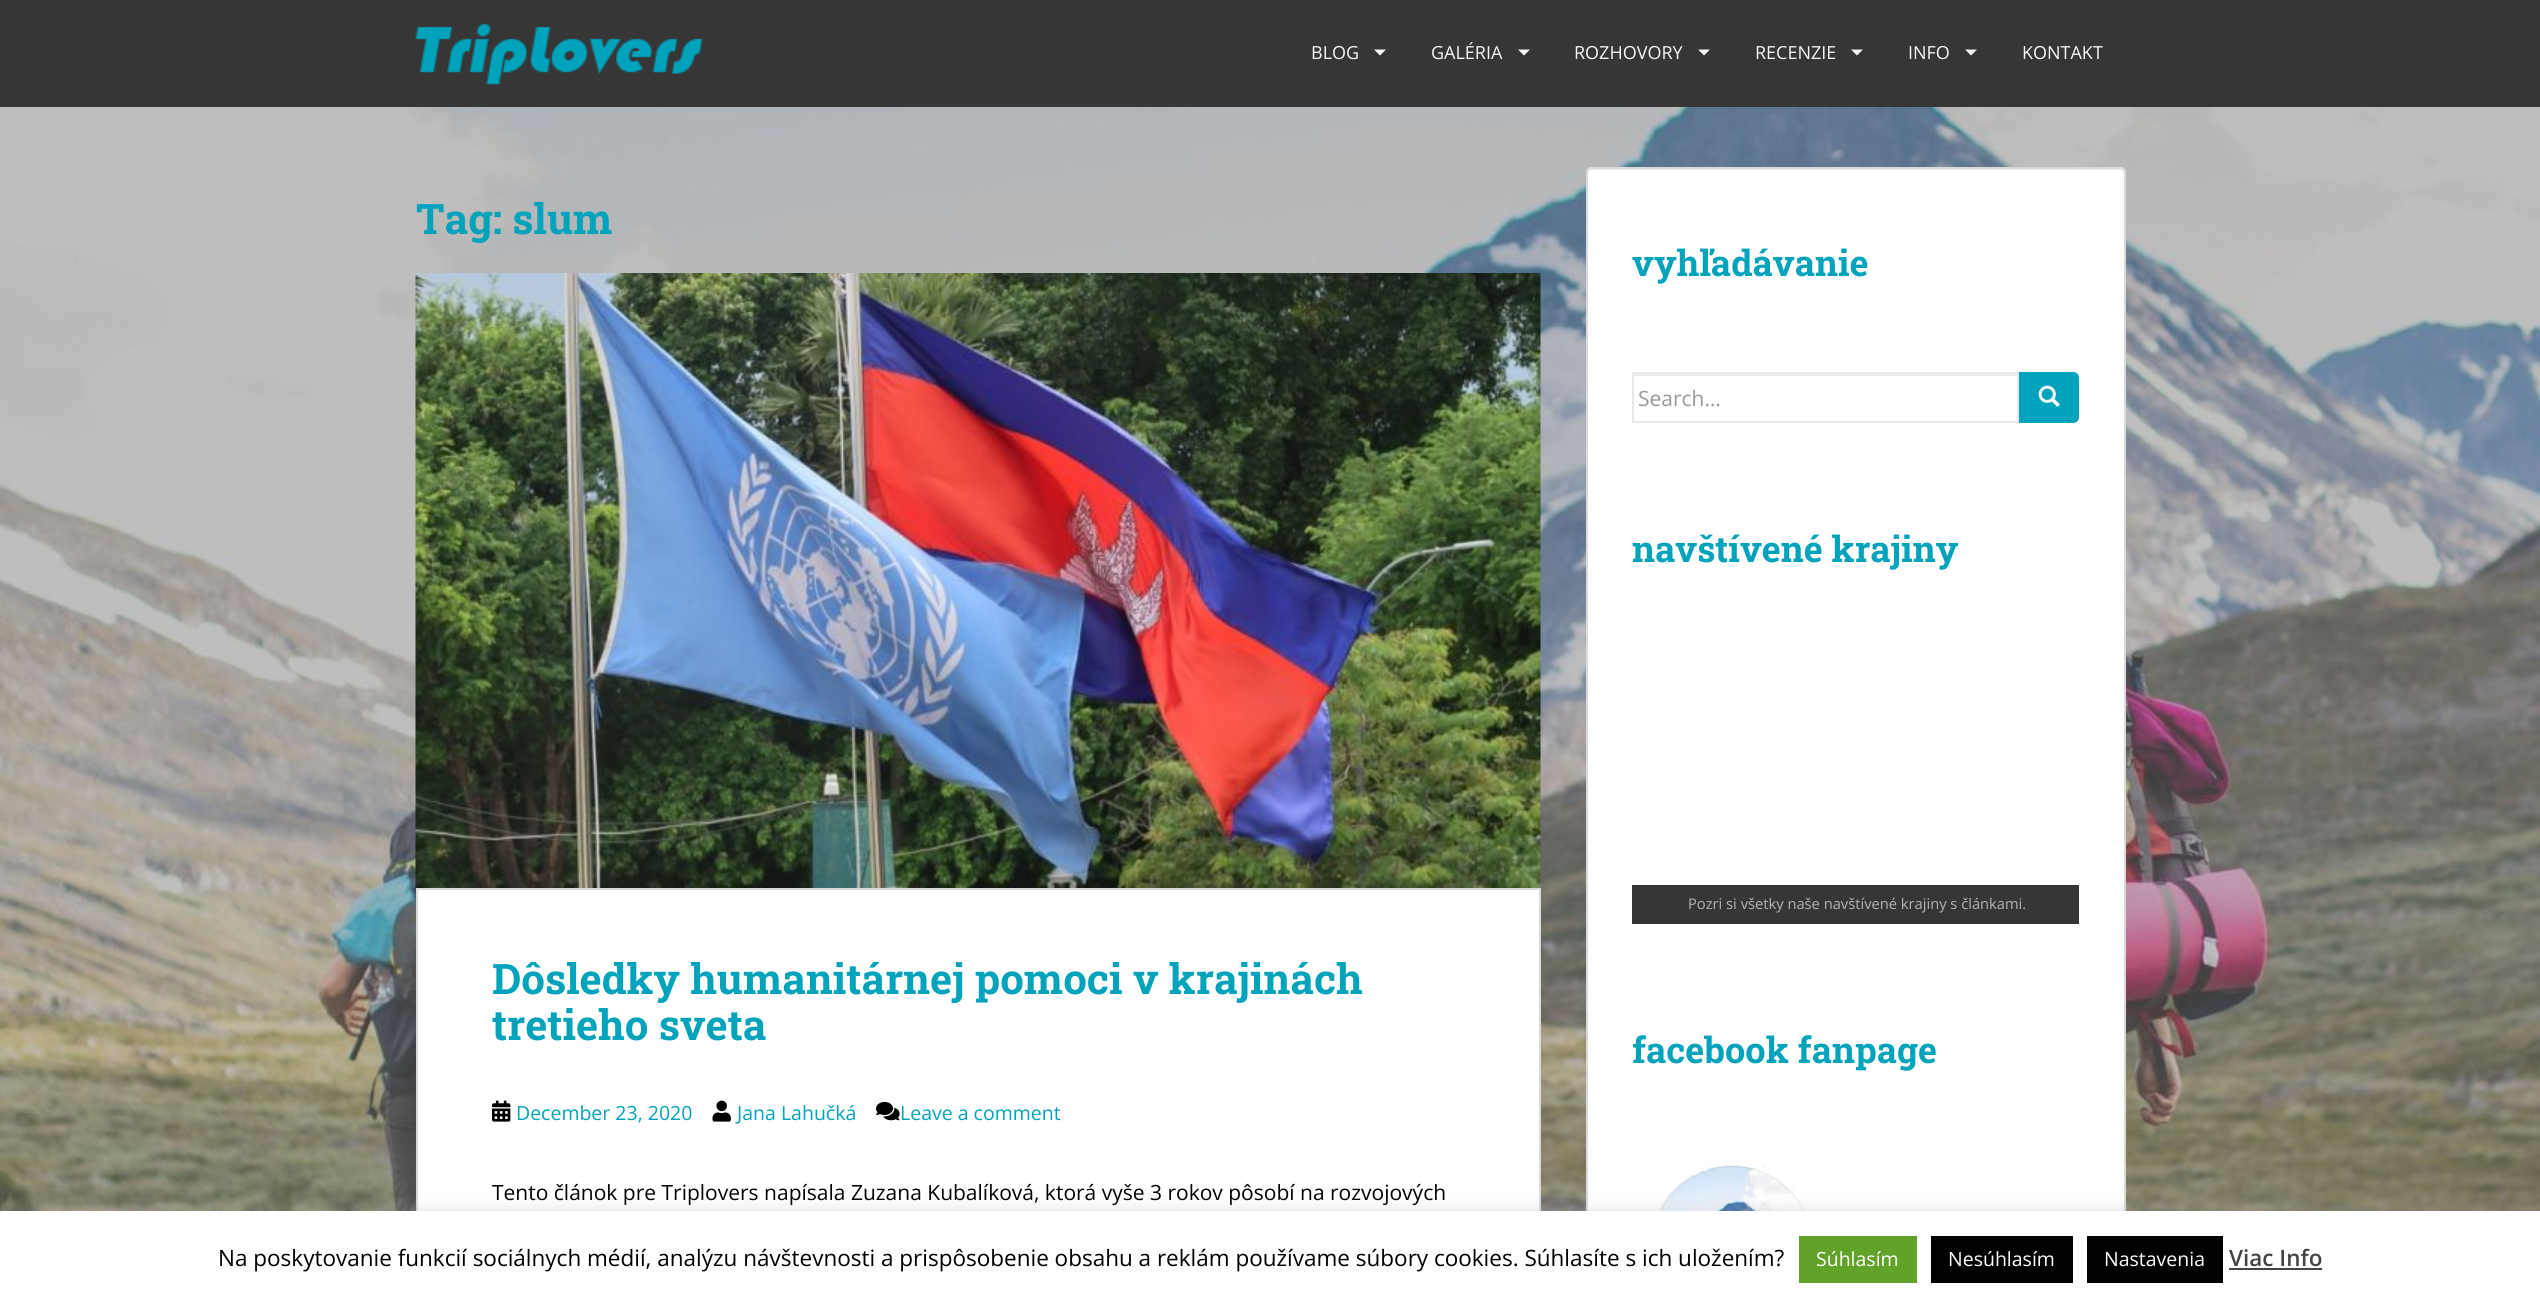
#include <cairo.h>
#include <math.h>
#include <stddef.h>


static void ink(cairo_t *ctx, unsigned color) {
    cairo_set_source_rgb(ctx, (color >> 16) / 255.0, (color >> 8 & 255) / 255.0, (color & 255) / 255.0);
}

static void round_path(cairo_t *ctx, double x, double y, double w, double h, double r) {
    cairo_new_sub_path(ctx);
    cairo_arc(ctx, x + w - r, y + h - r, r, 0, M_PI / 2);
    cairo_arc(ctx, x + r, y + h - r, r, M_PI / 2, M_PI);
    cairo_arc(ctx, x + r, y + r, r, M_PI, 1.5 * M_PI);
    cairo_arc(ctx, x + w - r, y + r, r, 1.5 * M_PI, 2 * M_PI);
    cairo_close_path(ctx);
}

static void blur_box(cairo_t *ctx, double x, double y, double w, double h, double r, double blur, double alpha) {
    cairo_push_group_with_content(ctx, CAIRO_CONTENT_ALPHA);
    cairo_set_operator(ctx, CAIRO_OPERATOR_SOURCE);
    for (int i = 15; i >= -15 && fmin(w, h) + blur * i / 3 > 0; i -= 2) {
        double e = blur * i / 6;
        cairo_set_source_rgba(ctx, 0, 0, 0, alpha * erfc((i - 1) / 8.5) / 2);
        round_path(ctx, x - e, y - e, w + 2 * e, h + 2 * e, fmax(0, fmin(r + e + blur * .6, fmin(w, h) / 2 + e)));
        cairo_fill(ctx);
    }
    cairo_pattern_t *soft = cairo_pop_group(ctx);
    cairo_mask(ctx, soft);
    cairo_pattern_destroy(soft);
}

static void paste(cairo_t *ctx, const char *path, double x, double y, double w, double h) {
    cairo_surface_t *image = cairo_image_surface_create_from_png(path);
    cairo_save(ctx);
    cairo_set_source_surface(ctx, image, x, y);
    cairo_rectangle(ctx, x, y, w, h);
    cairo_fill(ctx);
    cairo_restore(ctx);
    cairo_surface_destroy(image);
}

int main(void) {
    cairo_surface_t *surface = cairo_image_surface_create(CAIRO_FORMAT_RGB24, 2540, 1300);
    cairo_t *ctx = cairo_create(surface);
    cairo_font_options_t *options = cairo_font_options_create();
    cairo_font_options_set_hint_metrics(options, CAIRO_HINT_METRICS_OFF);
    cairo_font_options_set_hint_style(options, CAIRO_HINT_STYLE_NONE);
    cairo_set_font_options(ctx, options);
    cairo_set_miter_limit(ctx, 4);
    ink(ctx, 0xFFFFFF);
    cairo_paint(ctx);
    paste(ctx, "media/1.png", 0, 107, 2540, 1104);
    ink(ctx, 0x363636);
    cairo_rectangle(ctx, 0, 0, 2540, 107);
    cairo_fill(ctx);
    paste(ctx, "media/2.png", 415, 23, 288, 62);
    cairo_select_font_face(ctx, "Open Sans", CAIRO_FONT_SLANT_NORMAL, CAIRO_FONT_WEIGHT_NORMAL);
    cairo_set_font_size(ctx, 18);
    ink(ctx, 0xF5F7FA);
    cairo_move_to(ctx, 1311, 59);
    cairo_show_text(ctx, "BLOG");
    cairo_new_path(ctx);
    cairo_move_to(ctx, 1374, 49.5);
    cairo_line_to(ctx, 1386, 49.5);
    cairo_line_to(ctx, 1380, 55.5);
    cairo_close_path(ctx);
    cairo_fill(ctx);
    cairo_move_to(ctx, 1431, 59);
    cairo_show_text(ctx, "GALÉRIA");
    cairo_new_path(ctx);
    cairo_move_to(ctx, 1518, 49.5);
    cairo_line_to(ctx, 1530, 49.5);
    cairo_line_to(ctx, 1524, 55.5);
    cairo_close_path(ctx);
    cairo_fill(ctx);
    cairo_move_to(ctx, 1574, 59);
    cairo_show_text(ctx, "ROZHOVORY");
    cairo_new_path(ctx);
    cairo_move_to(ctx, 1698, 49.5);
    cairo_line_to(ctx, 1710, 49.5);
    cairo_line_to(ctx, 1704, 55.5);
    cairo_close_path(ctx);
    cairo_fill(ctx);
    cairo_move_to(ctx, 1755, 59);
    cairo_show_text(ctx, "RECENZIE");
    cairo_new_path(ctx);
    cairo_move_to(ctx, 1851, 49.5);
    cairo_line_to(ctx, 1863, 49.5);
    cairo_line_to(ctx, 1857, 55.5);
    cairo_close_path(ctx);
    cairo_fill(ctx);
    cairo_move_to(ctx, 1908, 59);
    cairo_show_text(ctx, "INFO");
    cairo_new_path(ctx);
    cairo_move_to(ctx, 1965, 49.5);
    cairo_line_to(ctx, 1977, 49.5);
    cairo_line_to(ctx, 1971, 55.5);
    cairo_close_path(ctx);
    cairo_fill(ctx);
    cairo_move_to(ctx, 2022, 59);
    cairo_show_text(ctx, "KONTAKT");
    cairo_select_font_face(ctx, "Roboto Slab", CAIRO_FONT_SLANT_NORMAL, CAIRO_FONT_WEIGHT_BOLD);
    cairo_set_font_size(ctx, 42);
    ink(ctx, 0x00A3BC);
    cairo_move_to(ctx, 416, 234);
    cairo_show_text(ctx, "Tag: slum");
    paste(ctx, "media/3.png", 415, 273, 1126, 615);
    ink(ctx, 0xFFFFFF);
    cairo_rectangle(ctx, 418, 890, 1121, 321);
    cairo_fill(ctx);
    cairo_rectangle(ctx, 417, 889, 1123, 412);
    ink(ctx, 0xDADADA);
    cairo_stroke(ctx);
    ink(ctx, 0x00A3BC);
    cairo_move_to(ctx, 492, 994);
    cairo_show_text(ctx, "Dôsledky humanitárnej pomoci v krajinách");
    cairo_move_to(ctx, 492, 1040);
    cairo_show_text(ctx, "tretieho sveta");
    paste(ctx, "media/4.png", 492, 1100, 19, 22);
    cairo_select_font_face(ctx, "Open Sans", CAIRO_FONT_SLANT_NORMAL, CAIRO_FONT_WEIGHT_NORMAL);
    cairo_set_font_size(ctx, 19.5);
    cairo_move_to(ctx, 516, 1120);
    cairo_show_text(ctx, "December 23, 2020");
    paste(ctx, "media/5.png", 712, 1100, 19, 22);
    cairo_move_to(ctx, 737, 1120);
    cairo_show_text(ctx, "Jana Lahučká");
    paste(ctx, "media/6.png", 876, 1101, 24, 20);
    cairo_move_to(ctx, 900, 1120);
    cairo_show_text(ctx, "Leave a comment");
    cairo_set_font_size(ctx, 21);
    ink(ctx, 0x000000);
    cairo_move_to(ctx, 492, 1200);
    cairo_show_text(ctx, "Tento článok pre Triplovers napísala Zuzana Kubalíková, ktorá vyše 3 rokov pôsobí na rozvojových");
    ink(ctx, 0xFFFFFF);
    round_path(ctx, 1586, 167, 540, 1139, 6);
    cairo_fill(ctx);
    ink(ctx, 0xF2F2F2);
    cairo_new_path(ctx);
    cairo_move_to(ctx, 1592, 170);
    cairo_line_to(ctx, 2120, 170);
    cairo_curve_to(ctx, 2122, 170, 2124, 172, 2124, 174);
    cairo_curve_to(ctx, 2124, 171, 2122, 168, 2119, 168);
    cairo_line_to(ctx, 1592, 168);
    cairo_curve_to(ctx, 1589, 168, 1587, 171, 1587, 174);
    cairo_curve_to(ctx, 1587, 172, 1589, 170, 1592, 170);
    cairo_close_path(ctx);
    cairo_fill(ctx);
    round_path(ctx, 1587, 168, 538, 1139, 5);
    ink(ctx, 0xDADADA);
    cairo_stroke(ctx);
    cairo_select_font_face(ctx, "Roboto Slab", CAIRO_FONT_SLANT_NORMAL, CAIRO_FONT_WEIGHT_BOLD);
    cairo_set_font_size(ctx, 36);
    ink(ctx, 0x00A3BC);
    cairo_move_to(ctx, 1632, 276);
    cairo_show_text(ctx, "vyhľadávanie");
    ink(ctx, 0xECECEC);
    cairo_rectangle(ctx, 1634, 374, 384, 2);
    cairo_fill(ctx);
    cairo_rectangle(ctx, 1633, 373, 385, 49);
    ink(ctx, 0xE8E8E8);
    cairo_stroke(ctx);
    cairo_select_font_face(ctx, "Open Sans", CAIRO_FONT_SLANT_NORMAL, CAIRO_FONT_WEIGHT_NORMAL);
    cairo_set_font_size(ctx, 21);
    ink(ctx, 0x999999);
    cairo_move_to(ctx, 1638, 406);
    cairo_show_text(ctx, "Search…");
    ink(ctx, 0x00A3BC);
    cairo_new_path(ctx);
    cairo_move_to(ctx, 2020, 373);
    cairo_line_to(ctx, 2073, 373);
    cairo_curve_to(ctx, 2076, 373, 2078, 375, 2078, 378);
    cairo_line_to(ctx, 2078, 417);
    cairo_curve_to(ctx, 2078, 420, 2076, 422, 2073, 422);
    cairo_line_to(ctx, 2020, 422);
    cairo_close_path(ctx);
    cairo_fill_preserve(ctx);
    cairo_stroke(ctx);
    paste(ctx, "media/7.png", 2038, 385, 22, 22);
    cairo_select_font_face(ctx, "Roboto Slab", CAIRO_FONT_SLANT_NORMAL, CAIRO_FONT_WEIGHT_BOLD);
    cairo_set_font_size(ctx, 36);
    cairo_move_to(ctx, 1632, 562);
    cairo_show_text(ctx, "navštívené krajiny");
    ink(ctx, 0x363636);
    cairo_rectangle(ctx, 1632, 885, 447, 39);
    cairo_fill(ctx);
    cairo_select_font_face(ctx, "Open Sans", CAIRO_FONT_SLANT_NORMAL, CAIRO_FONT_WEIGHT_NORMAL);
    cairo_set_font_size(ctx, 14.7);
    ink(ctx, 0xB4B4B7);
    cairo_move_to(ctx, 1688, 909);
    cairo_show_text(ctx, "Pozri si všetky naše navštívené krajiny s článkami.");
    cairo_select_font_face(ctx, "Roboto Slab", CAIRO_FONT_SLANT_NORMAL, CAIRO_FONT_WEIGHT_BOLD);
    cairo_set_font_size(ctx, 36);
    ink(ctx, 0x00A3BC);
    cairo_move_to(ctx, 1632, 1063);
    cairo_show_text(ctx, "facebook fanpage");
    paste(ctx, "media/8.png", 1649, 1164, 407, 47);
    ink(ctx, 0xACABAB);
    blur_box(ctx, 0, 1209, 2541, 90, 0, 7.5, 0.3);
    ink(ctx, 0xFFFFFF);
    cairo_rectangle(ctx, 0, 1211, 2540, 89);
    cairo_fill(ctx);
    cairo_select_font_face(ctx, "Open Sans", CAIRO_FONT_SLANT_NORMAL, CAIRO_FONT_WEIGHT_NORMAL);
    cairo_set_font_size(ctx, 22.5);
    ink(ctx, 0x000000);
    cairo_move_to(ctx, 218, 1266);
    cairo_show_text(ctx, "Na poskytovanie funkcií sociálnych médií, analýzu návštevnosti a prispôsobenie obsahu a reklám používame súbory cookies. Súhlasíte s ich uložením?");
    ink(ctx, 0x61A229);
    cairo_rectangle(ctx, 1799, 1236, 118, 47);
    cairo_fill(ctx);
    cairo_set_font_size(ctx, 19.5);
    ink(ctx, 0xFFFFFF);
    cairo_move_to(ctx, 1816, 1266);
    cairo_show_text(ctx, "Súhlasím");
    ink(ctx, 0x000000);
    cairo_rectangle(ctx, 1931, 1236, 142, 47);
    cairo_fill(ctx);
    ink(ctx, 0xFFFFFF);
    cairo_move_to(ctx, 1948, 1266);
    cairo_show_text(ctx, "Nesúhlasím");
    ink(ctx, 0x000000);
    cairo_rectangle(ctx, 2087, 1236, 136, 47);
    cairo_fill(ctx);
    ink(ctx, 0xFFFFFF);
    cairo_move_to(ctx, 2104, 1266);
    cairo_show_text(ctx, "Nastavenia");
    cairo_select_font_face(ctx, "Open Sans SemiBold", CAIRO_FONT_SLANT_NORMAL, CAIRO_FONT_WEIGHT_NORMAL);
    cairo_set_font_size(ctx, 22.5);
    ink(ctx, 0x444444);
    cairo_move_to(ctx, 2229, 1266);
    cairo_show_text(ctx, "Viac Info");
    cairo_rectangle(ctx, 2229, 1268, 93, 2);
    cairo_fill(ctx);
    cairo_surface_write_to_png(surface, "image.png");
    cairo_font_options_destroy(options);
    cairo_destroy(ctx);
    cairo_surface_destroy(surface);
    return 0;
}
